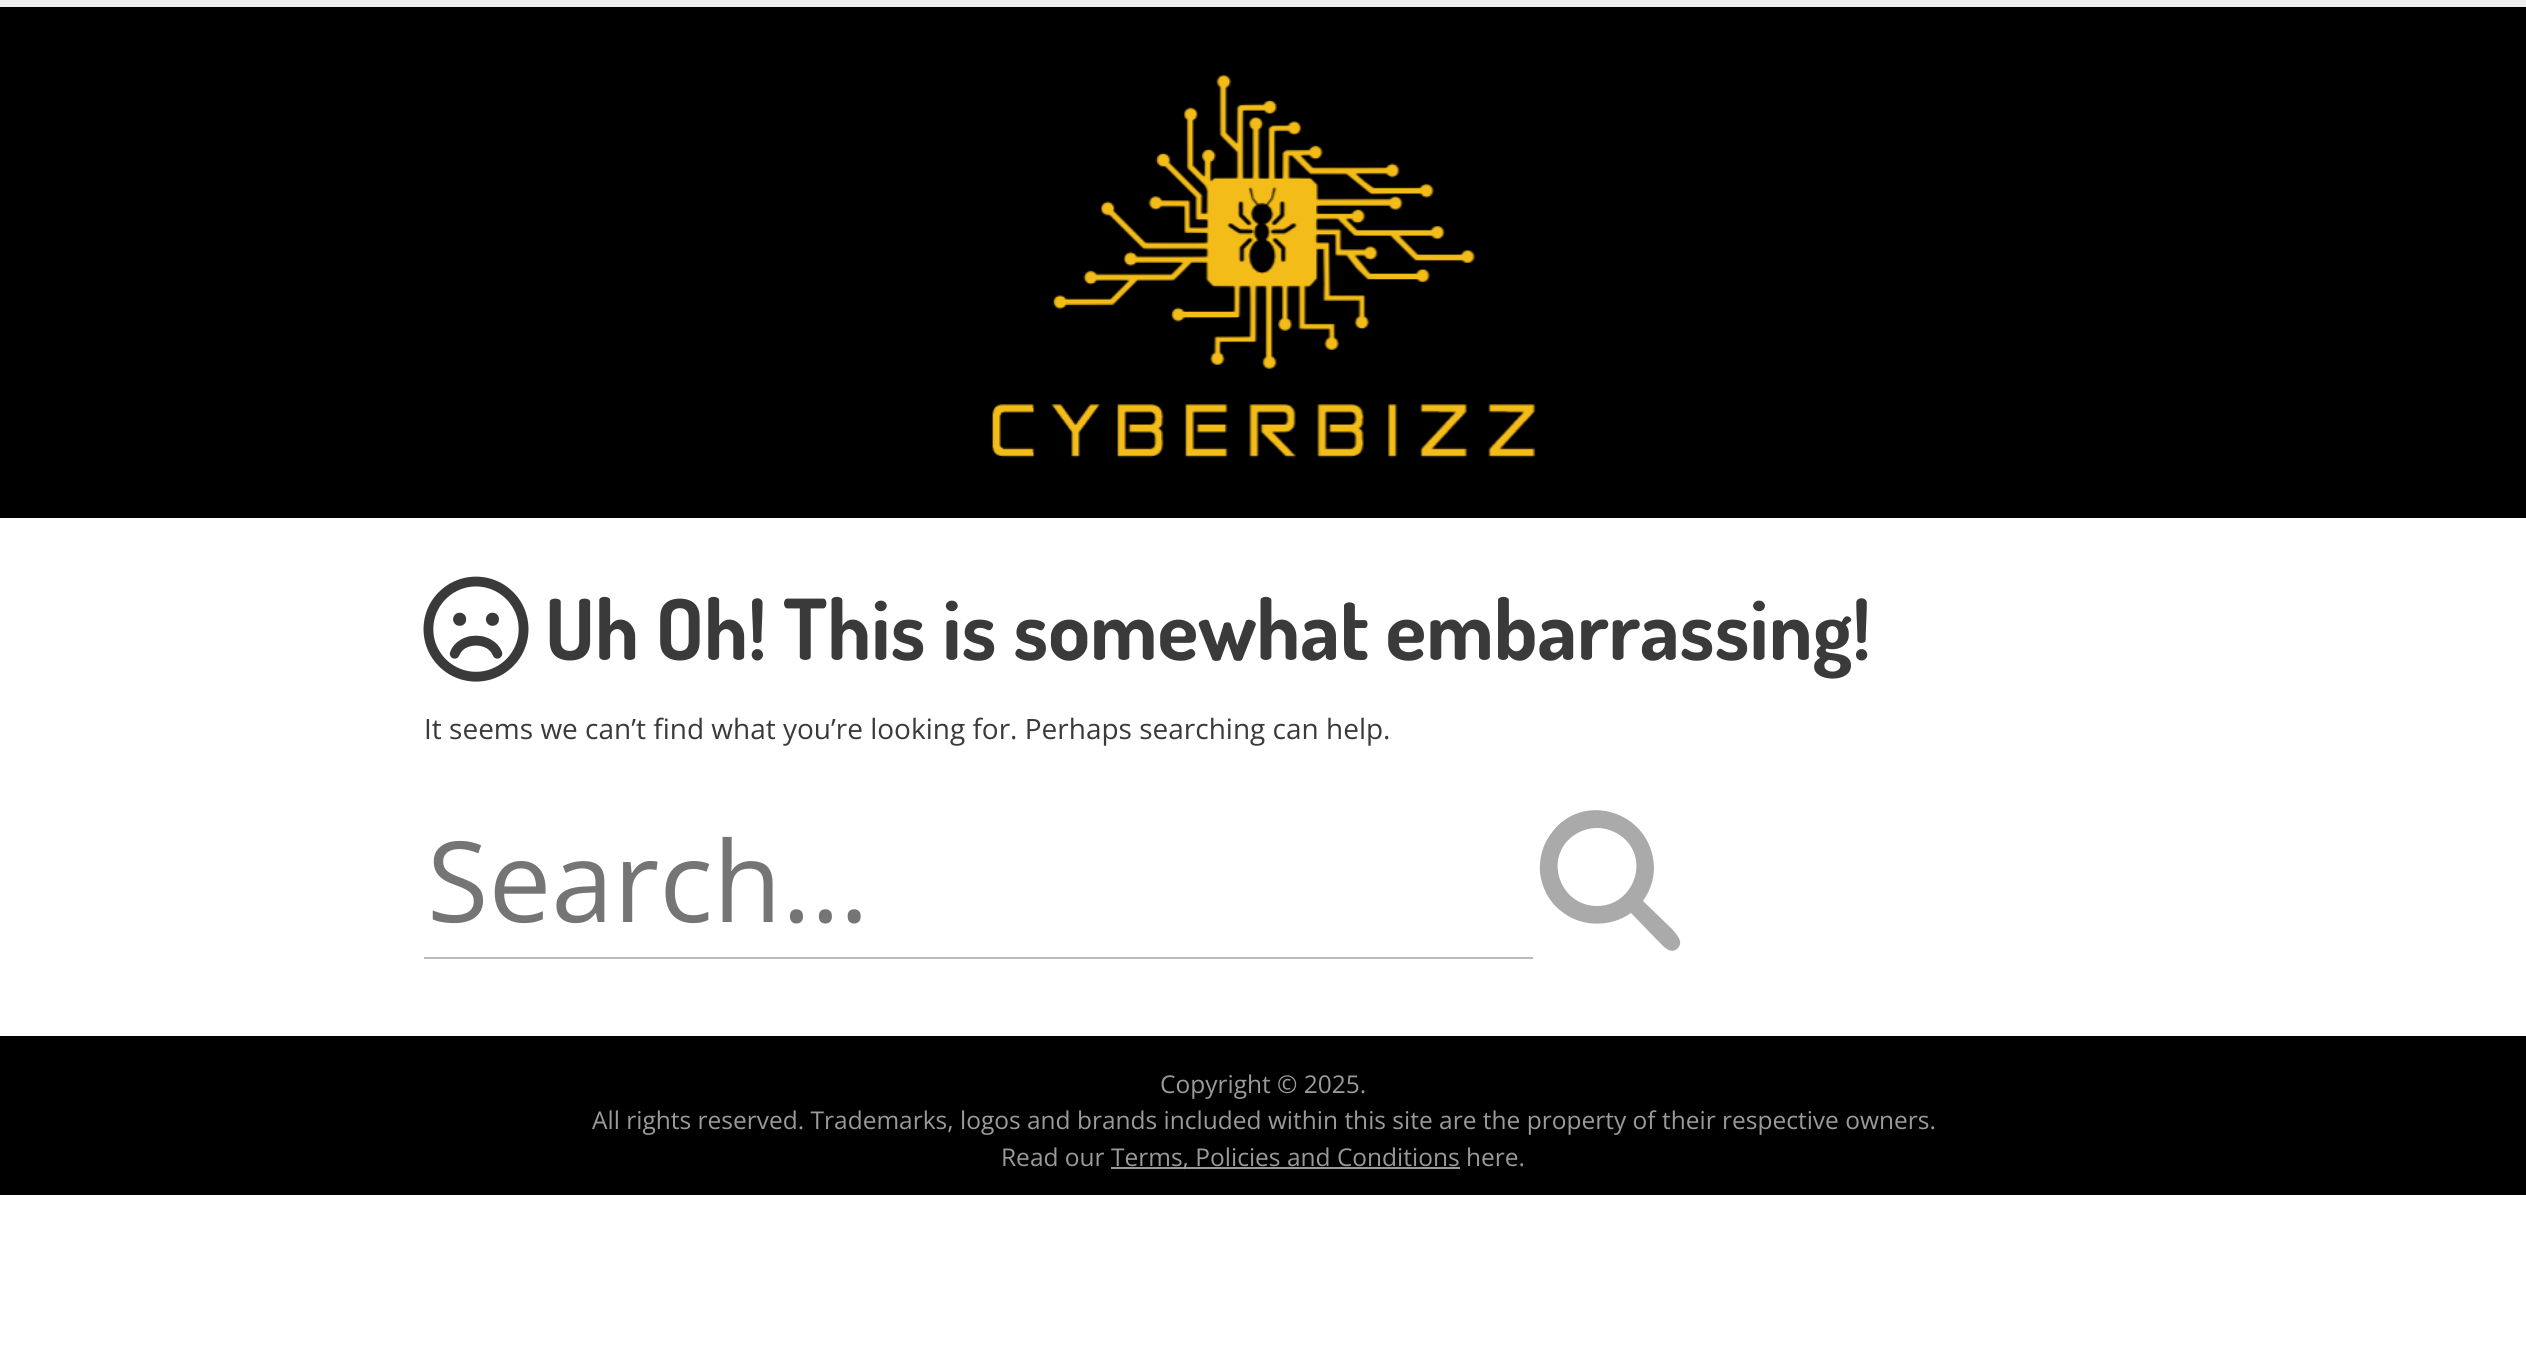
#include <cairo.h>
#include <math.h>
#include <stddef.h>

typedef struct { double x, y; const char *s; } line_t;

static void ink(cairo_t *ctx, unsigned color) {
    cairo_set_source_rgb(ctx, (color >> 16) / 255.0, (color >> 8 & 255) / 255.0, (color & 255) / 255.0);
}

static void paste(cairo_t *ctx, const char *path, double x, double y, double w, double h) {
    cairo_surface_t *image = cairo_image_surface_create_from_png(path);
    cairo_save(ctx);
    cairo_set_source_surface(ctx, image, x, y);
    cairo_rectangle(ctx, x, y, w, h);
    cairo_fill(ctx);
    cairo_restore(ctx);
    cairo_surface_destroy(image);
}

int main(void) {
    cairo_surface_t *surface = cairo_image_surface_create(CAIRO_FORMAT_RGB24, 2526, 1351);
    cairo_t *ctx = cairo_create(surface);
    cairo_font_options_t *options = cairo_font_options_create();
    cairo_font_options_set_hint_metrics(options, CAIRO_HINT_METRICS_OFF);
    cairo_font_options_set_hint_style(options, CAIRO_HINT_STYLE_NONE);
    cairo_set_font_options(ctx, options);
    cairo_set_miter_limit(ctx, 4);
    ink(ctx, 0xFFFFFF);
    cairo_paint(ctx);
    ink(ctx, 0xEEEEEE);
    cairo_rectangle(ctx, 0, 0, 2526, 7);
    cairo_fill(ctx);
    ink(ctx, 0x000000);
    cairo_rectangle(ctx, 0, 7, 2526, 511);
    cairo_fill(ctx);
    paste(ctx, "media/1.png", 992, 75, 544, 383);
    paste(ctx, "media/2.png", 423, 576, 106, 106);
    cairo_select_font_face(ctx, "Dosis", CAIRO_FONT_SLANT_NORMAL, CAIRO_FONT_WEIGHT_BOLD);
    cairo_set_font_size(ctx, 84);
    ink(ctx, 0x3A3A3A);
    cairo_move_to(ctx, 545, 660);
    cairo_show_text(ctx, "Uh Oh! This is somewhat embarrassing!");
    cairo_select_font_face(ctx, "Open Sans", CAIRO_FONT_SLANT_NORMAL, CAIRO_FONT_WEIGHT_NORMAL);
    cairo_set_font_size(ctx, 28);
    cairo_move_to(ctx, 424, 739);
    cairo_show_text(ctx, "It seems we can’t find what you’re looking for. Perhaps searching can help.");
    ink(ctx, 0xBBBBBB);
    cairo_rectangle(ctx, 424, 957, 1109, 2);
    cairo_fill(ctx);
    cairo_set_font_size(ctx, 112);
    ink(ctx, 0x757575);
    cairo_move_to(ctx, 427, 922);
    cairo_show_text(ctx, "Search…");
    ink(ctx, 0xAAAAAA);
    cairo_new_path(ctx);
    cairo_move_to(ctx, 1654, 867);
    cairo_curve_to(ctx, 1654, 880, 1650, 891, 1643, 901);
    cairo_line_to(ctx, 1672, 929);
    cairo_curve_to(ctx, 1676, 934, 1684, 941, 1678, 948);
    cairo_curve_to(ctx, 1671, 955, 1664, 947, 1659, 942);
    cairo_line_to(ctx, 1631, 913);
    cairo_curve_to(ctx, 1610, 928, 1580, 927, 1561, 911);
    cairo_curve_to(ctx, 1549, 902, 1542, 888, 1540, 873);
    cairo_curve_to(ctx, 1539, 860, 1542, 846, 1550, 835);
    cairo_curve_to(ctx, 1581, 789, 1652, 811, 1654, 867);
    cairo_close_path(ctx);
    cairo_move_to(ctx, 1597, 906);
    cairo_curve_to(ctx, 1634, 906, 1651, 858, 1621, 836);
    cairo_curve_to(ctx, 1614, 831, 1606, 828, 1597, 828);
    cairo_curve_to(ctx, 1588, 828, 1580, 831, 1573, 836);
    cairo_curve_to(ctx, 1543, 858, 1560, 906, 1597, 906);
    cairo_close_path(ctx);
    cairo_fill(ctx);
    ink(ctx, 0x000000);
    cairo_rectangle(ctx, 0, 1036, 2526, 159);
    cairo_fill(ctx);
    cairo_set_font_size(ctx, 24.5);
    ink(ctx, 0x9A9A9A);
    {
        static const line_t items[] = {
            {1160, 1093, "Copyright © 2025."},
            {592, 1129, "All rights reserved. Trademarks, logos and brands included within this site are the property of their respective owners."},
            {1001, 1166, "Read our"},
        };
        for (size_t i = 0; i < sizeof items / sizeof *items; i++) {
            cairo_move_to(ctx, items[i].x, items[i].y);
            cairo_show_text(ctx, items[i].s);
        }
    }
    cairo_rectangle(ctx, 1111, 1167, 349, 2);
    cairo_fill(ctx);
    cairo_move_to(ctx, 1111, 1166);
    cairo_show_text(ctx, "Terms, Policies and Conditions here.");
    cairo_surface_write_to_png(surface, "image.png");
    cairo_font_options_destroy(options);
    cairo_destroy(ctx);
    cairo_surface_destroy(surface);
    return 0;
}
